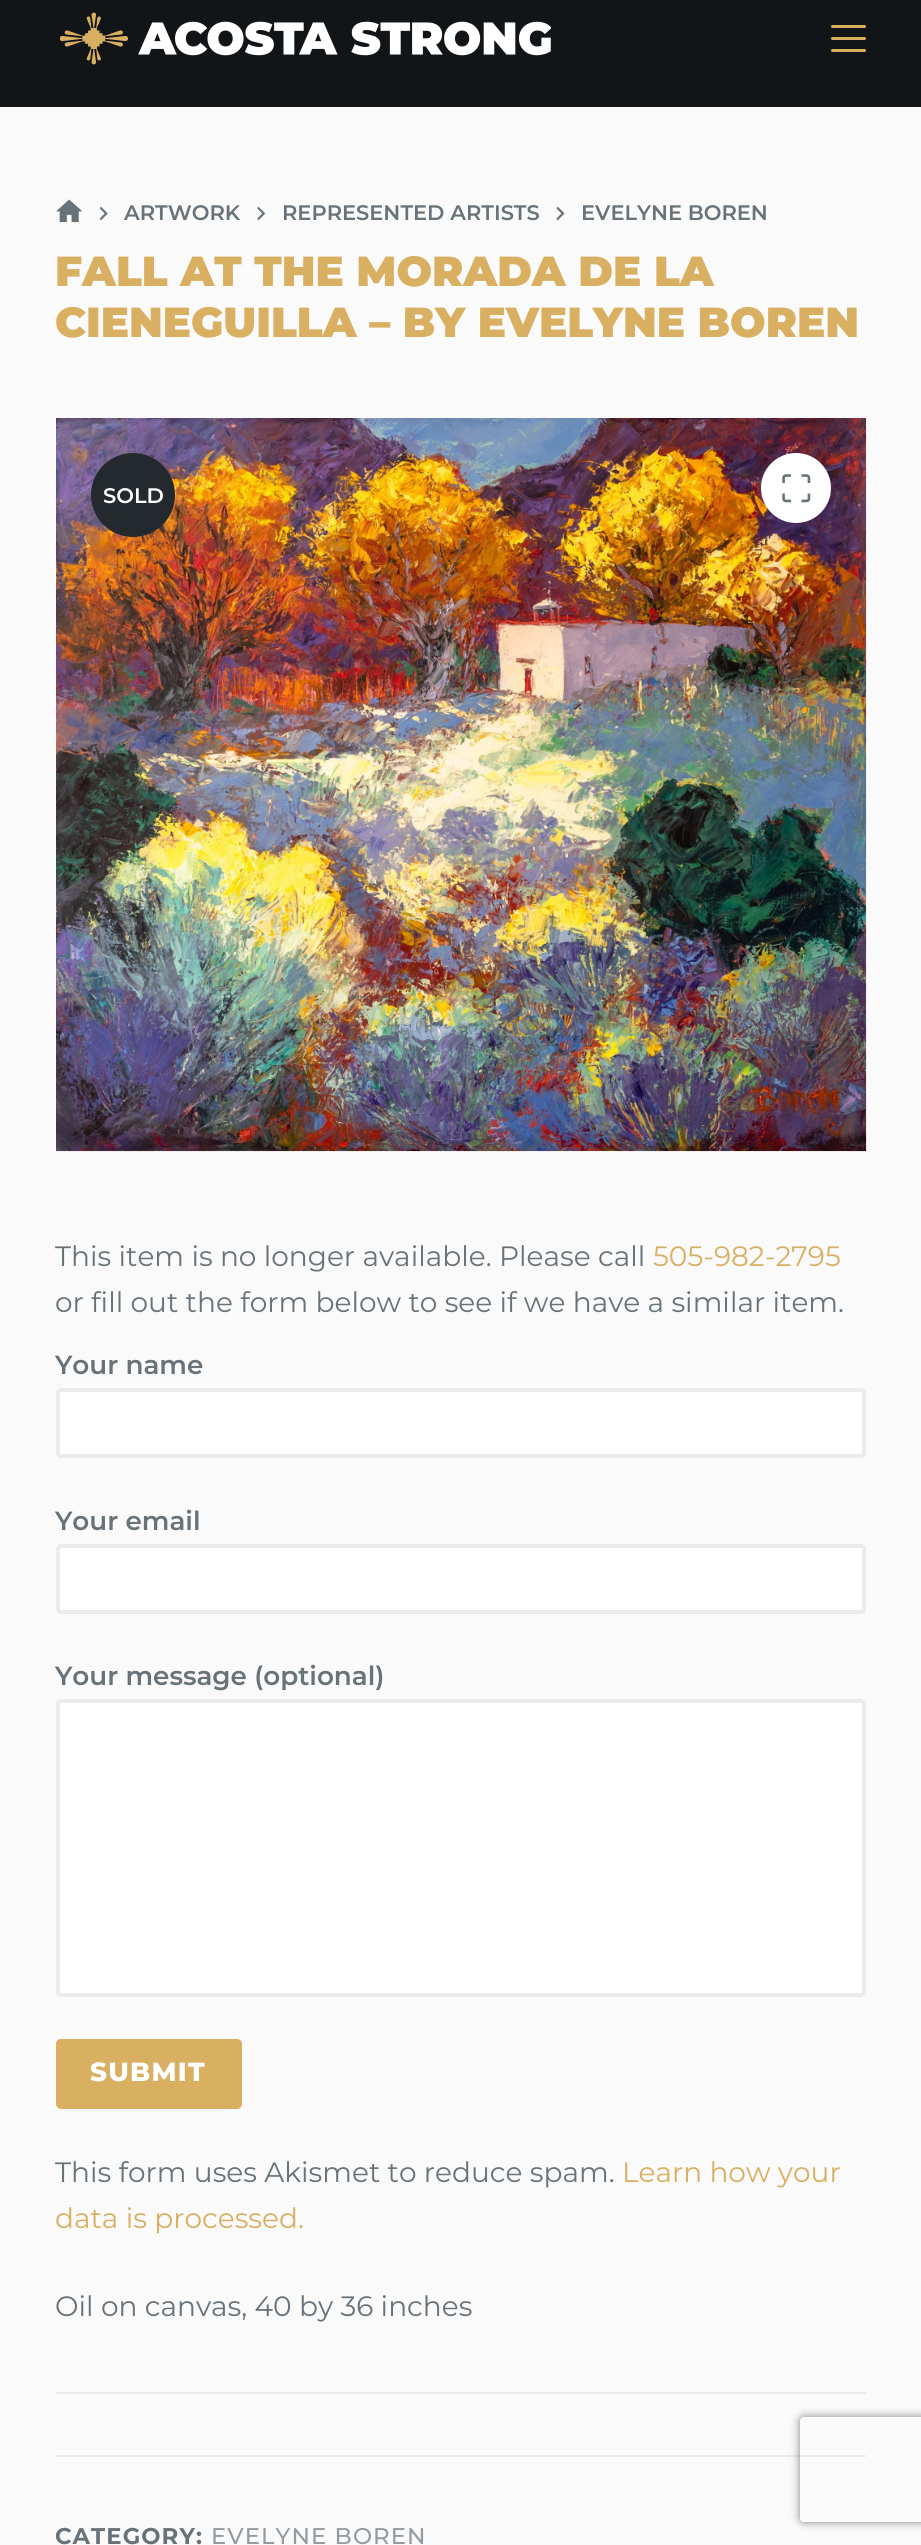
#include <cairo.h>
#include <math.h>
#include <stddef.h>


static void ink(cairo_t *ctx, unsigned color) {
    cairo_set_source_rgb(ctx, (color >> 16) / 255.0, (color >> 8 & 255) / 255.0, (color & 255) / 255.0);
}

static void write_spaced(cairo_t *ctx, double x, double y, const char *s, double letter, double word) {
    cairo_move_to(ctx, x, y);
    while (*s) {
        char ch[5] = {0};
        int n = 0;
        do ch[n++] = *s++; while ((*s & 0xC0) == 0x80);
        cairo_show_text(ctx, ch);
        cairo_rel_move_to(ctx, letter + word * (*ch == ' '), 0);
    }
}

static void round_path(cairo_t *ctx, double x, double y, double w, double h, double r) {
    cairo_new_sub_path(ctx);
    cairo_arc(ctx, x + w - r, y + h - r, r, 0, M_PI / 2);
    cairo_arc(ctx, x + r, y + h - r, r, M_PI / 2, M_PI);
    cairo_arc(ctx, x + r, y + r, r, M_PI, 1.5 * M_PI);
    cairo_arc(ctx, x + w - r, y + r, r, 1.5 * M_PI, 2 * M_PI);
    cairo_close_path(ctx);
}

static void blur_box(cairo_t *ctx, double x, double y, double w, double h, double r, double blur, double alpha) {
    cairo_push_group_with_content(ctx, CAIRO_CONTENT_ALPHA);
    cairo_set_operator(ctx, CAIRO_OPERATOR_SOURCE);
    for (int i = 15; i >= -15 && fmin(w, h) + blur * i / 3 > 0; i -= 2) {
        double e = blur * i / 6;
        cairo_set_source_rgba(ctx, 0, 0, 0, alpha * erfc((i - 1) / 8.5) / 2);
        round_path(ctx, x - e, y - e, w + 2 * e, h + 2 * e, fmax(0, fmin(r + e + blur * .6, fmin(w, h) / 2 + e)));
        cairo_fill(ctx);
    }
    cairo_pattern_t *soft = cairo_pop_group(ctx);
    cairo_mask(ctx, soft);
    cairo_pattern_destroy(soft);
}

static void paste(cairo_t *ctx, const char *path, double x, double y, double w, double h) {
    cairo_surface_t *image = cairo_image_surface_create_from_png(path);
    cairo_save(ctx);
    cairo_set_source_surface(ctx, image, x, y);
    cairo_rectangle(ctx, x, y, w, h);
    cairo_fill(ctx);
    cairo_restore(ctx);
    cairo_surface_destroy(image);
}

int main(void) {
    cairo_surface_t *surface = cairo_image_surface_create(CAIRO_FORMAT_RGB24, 921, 2545);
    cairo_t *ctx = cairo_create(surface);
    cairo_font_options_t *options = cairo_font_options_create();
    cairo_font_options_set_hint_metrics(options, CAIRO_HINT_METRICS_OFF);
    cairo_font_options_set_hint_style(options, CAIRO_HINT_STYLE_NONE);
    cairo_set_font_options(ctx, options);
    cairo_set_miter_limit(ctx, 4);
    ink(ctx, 0xFAFAFA);
    cairo_paint(ctx);
    ink(ctx, 0x111518);
    cairo_rectangle(ctx, 0, 0, 921, 107);
    cairo_fill(ctx);
    paste(ctx, "media/1.png", 60, 12, 491, 53);
    ink(ctx, 0xD9AF62);
    round_path(ctx, 831, 25, 35, 3, 1.5);
    cairo_fill(ctx);
    round_path(ctx, 831, 37, 35, 3, 1.5);
    cairo_fill(ctx);
    round_path(ctx, 831, 49, 35, 3, 1.5);
    cairo_fill(ctx);
    paste(ctx, "media/2.png", 56, 199, 26, 24);
    paste(ctx, "media/3.png", 99, 207, 9, 14);
    cairo_select_font_face(ctx, "Montserrat SemiBold", CAIRO_FONT_SLANT_NORMAL, CAIRO_FONT_WEIGHT_NORMAL);
    cairo_set_font_size(ctx, 21);
    ink(ctx, 0x687279);
    cairo_move_to(ctx, 124, 220);
    cairo_show_text(ctx, "ARTWORK");
    paste(ctx, "media/4.png", 257, 207, 9, 14);
    cairo_move_to(ctx, 282, 220);
    cairo_show_text(ctx, "REPRESENTED ARTISTS");
    paste(ctx, "media/5.png", 556, 207, 9, 14);
    cairo_move_to(ctx, 581, 220);
    cairo_show_text(ctx, "EVELYNE BOREN");
    cairo_select_font_face(ctx, "Montserrat Black", CAIRO_FONT_SLANT_NORMAL, CAIRO_FONT_WEIGHT_NORMAL);
    cairo_set_font_size(ctx, 42);
    ink(ctx, 0xD9AF62);
    cairo_move_to(ctx, 55, 286);
    cairo_show_text(ctx, "FALL AT THE MORADA DE LA");
    cairo_move_to(ctx, 55, 337);
    cairo_show_text(ctx, "CIENEGUILLA – BY EVELYNE BOREN");
    paste(ctx, "media/6.png", 56, 418, 811, 734);
    ink(ctx, 0x24292E);
    cairo_arc(ctx, 133, 495, 42, 0, 2 * M_PI);
    cairo_fill(ctx);
    cairo_select_font_face(ctx, "Montserrat SemiBold", CAIRO_FONT_SLANT_NORMAL, CAIRO_FONT_WEIGHT_NORMAL);
    cairo_set_font_size(ctx, 21);
    ink(ctx, 0xFFFFFF);
    cairo_move_to(ctx, 103, 503);
    cairo_show_text(ctx, "SOLD");
    cairo_new_path(ctx);
    cairo_arc(ctx, 796, 488, 35, 0, 2 * M_PI);
    cairo_fill(ctx);
    paste(ctx, "media/7.png", 782, 474, 29, 29);
    cairo_select_font_face(ctx, "Montserrat", CAIRO_FONT_SLANT_NORMAL, CAIRO_FONT_WEIGHT_NORMAL);
    cairo_set_font_size(ctx, 28);
    ink(ctx, 0x687279);
    cairo_move_to(ctx, 55, 1266);
    cairo_show_text(ctx, "This item is no longer available. Please call");
    ink(ctx, 0xD9AF62);
    cairo_move_to(ctx, 653, 1266);
    cairo_show_text(ctx, "505-982-2795");
    ink(ctx, 0x687279);
    cairo_move_to(ctx, 55, 1312);
    cairo_show_text(ctx, "or fill out the form below to see if we have a similar item.");
    cairo_select_font_face(ctx, "Montserrat SemiBold", CAIRO_FONT_SLANT_NORMAL, CAIRO_FONT_WEIGHT_NORMAL);
    cairo_set_font_size(ctx, 26.25);
    cairo_move_to(ctx, 55, 1374);
    cairo_show_text(ctx, "Your name");
    ink(ctx, 0xFFFFFF);
    round_path(ctx, 58, 1390, 806, 66, 3);
    cairo_fill_preserve(ctx);
    ink(ctx, 0xE9EBEC);
    cairo_set_line_width(ctx, 4);
    cairo_stroke(ctx);
    ink(ctx, 0x687279);
    cairo_move_to(ctx, 55, 1530);
    cairo_show_text(ctx, "Your email");
    ink(ctx, 0xFFFFFF);
    round_path(ctx, 58, 1546, 806, 66, 3);
    cairo_fill_preserve(ctx);
    ink(ctx, 0xE9EBEC);
    cairo_stroke(ctx);
    ink(ctx, 0x687279);
    cairo_move_to(ctx, 55, 1685);
    cairo_show_text(ctx, "Your message (optional)");
    ink(ctx, 0xFFFFFF);
    round_path(ctx, 58, 1701, 806, 294, 3);
    cairo_fill_preserve(ctx);
    ink(ctx, 0xE9EBEC);
    cairo_stroke(ctx);
    ink(ctx, 0xD9AF62);
    round_path(ctx, 56, 2039, 186, 70, 5);
    cairo_fill(ctx);
    cairo_select_font_face(ctx, "Montserrat ExtraBold", CAIRO_FONT_SLANT_NORMAL, CAIRO_FONT_WEIGHT_NORMAL);
    ink(ctx, 0xFFFFFF);
    write_spaced(ctx, 90, 2081, "SUBMIT", 1.25, 0);
    cairo_select_font_face(ctx, "Montserrat", CAIRO_FONT_SLANT_NORMAL, CAIRO_FONT_WEIGHT_NORMAL);
    cairo_set_font_size(ctx, 28);
    ink(ctx, 0x687279);
    cairo_move_to(ctx, 55, 2182);
    cairo_show_text(ctx, "This form uses Akismet to reduce spam.");
    ink(ctx, 0xD9AF62);
    cairo_move_to(ctx, 622, 2182);
    cairo_show_text(ctx, "Learn how your");
    cairo_move_to(ctx, 55, 2228);
    cairo_show_text(ctx, "data is processed.");
    ink(ctx, 0x687279);
    cairo_move_to(ctx, 55, 2316);
    cairo_show_text(ctx, "Oil on canvas, 40 by 36 inches");
    ink(ctx, 0xE9EBEC);
    cairo_rectangle(ctx, 56, 2392, 810, 2);
    cairo_fill(ctx);
    cairo_rectangle(ctx, 56, 2455, 810, 2);
    cairo_fill(ctx);
    cairo_select_font_face(ctx, "Montserrat", CAIRO_FONT_SLANT_NORMAL, CAIRO_FONT_WEIGHT_BOLD);
    cairo_set_font_size(ctx, 22.75);
    ink(ctx, 0x687279);
    write_spaced(ctx, 55, 2544, "CATEGORY:", 1.1, 0);
    cairo_select_font_face(ctx, "Montserrat Medium", CAIRO_FONT_SLANT_NORMAL, CAIRO_FONT_WEIGHT_NORMAL);
    ink(ctx, 0x949BA0);
    write_spaced(ctx, 211, 2544, "EVELYNE BOREN", 1.1, 0);
    cairo_save(ctx);
    cairo_set_fill_rule(ctx, CAIRO_FILL_RULE_EVEN_ODD);
    cairo_new_path(ctx);
    cairo_move_to(ctx, 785, 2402);
    cairo_line_to(ctx, 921, 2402);
    cairo_line_to(ctx, 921, 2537);
    cairo_line_to(ctx, 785, 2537);
    cairo_close_path(ctx);
    cairo_move_to(ctx, 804, 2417);
    cairo_line_to(ctx, 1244, 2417);
    cairo_curve_to(ctx, 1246, 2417, 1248, 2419, 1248, 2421);
    cairo_line_to(ctx, 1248, 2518);
    cairo_curve_to(ctx, 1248, 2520, 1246, 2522, 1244, 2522);
    cairo_line_to(ctx, 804, 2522);
    cairo_curve_to(ctx, 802, 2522, 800, 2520, 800, 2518);
    cairo_line_to(ctx, 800, 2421);
    cairo_curve_to(ctx, 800, 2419, 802, 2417, 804, 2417);
    cairo_close_path(ctx);
    cairo_clip(ctx);
    ink(ctx, 0x808080);
    blur_box(ctx, 800, 2417, 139, 105, 4, 4.5, 1);
    cairo_restore(ctx);
    cairo_surface_write_to_png(surface, "image.png");
    cairo_font_options_destroy(options);
    cairo_destroy(ctx);
    cairo_surface_destroy(surface);
    return 0;
}
